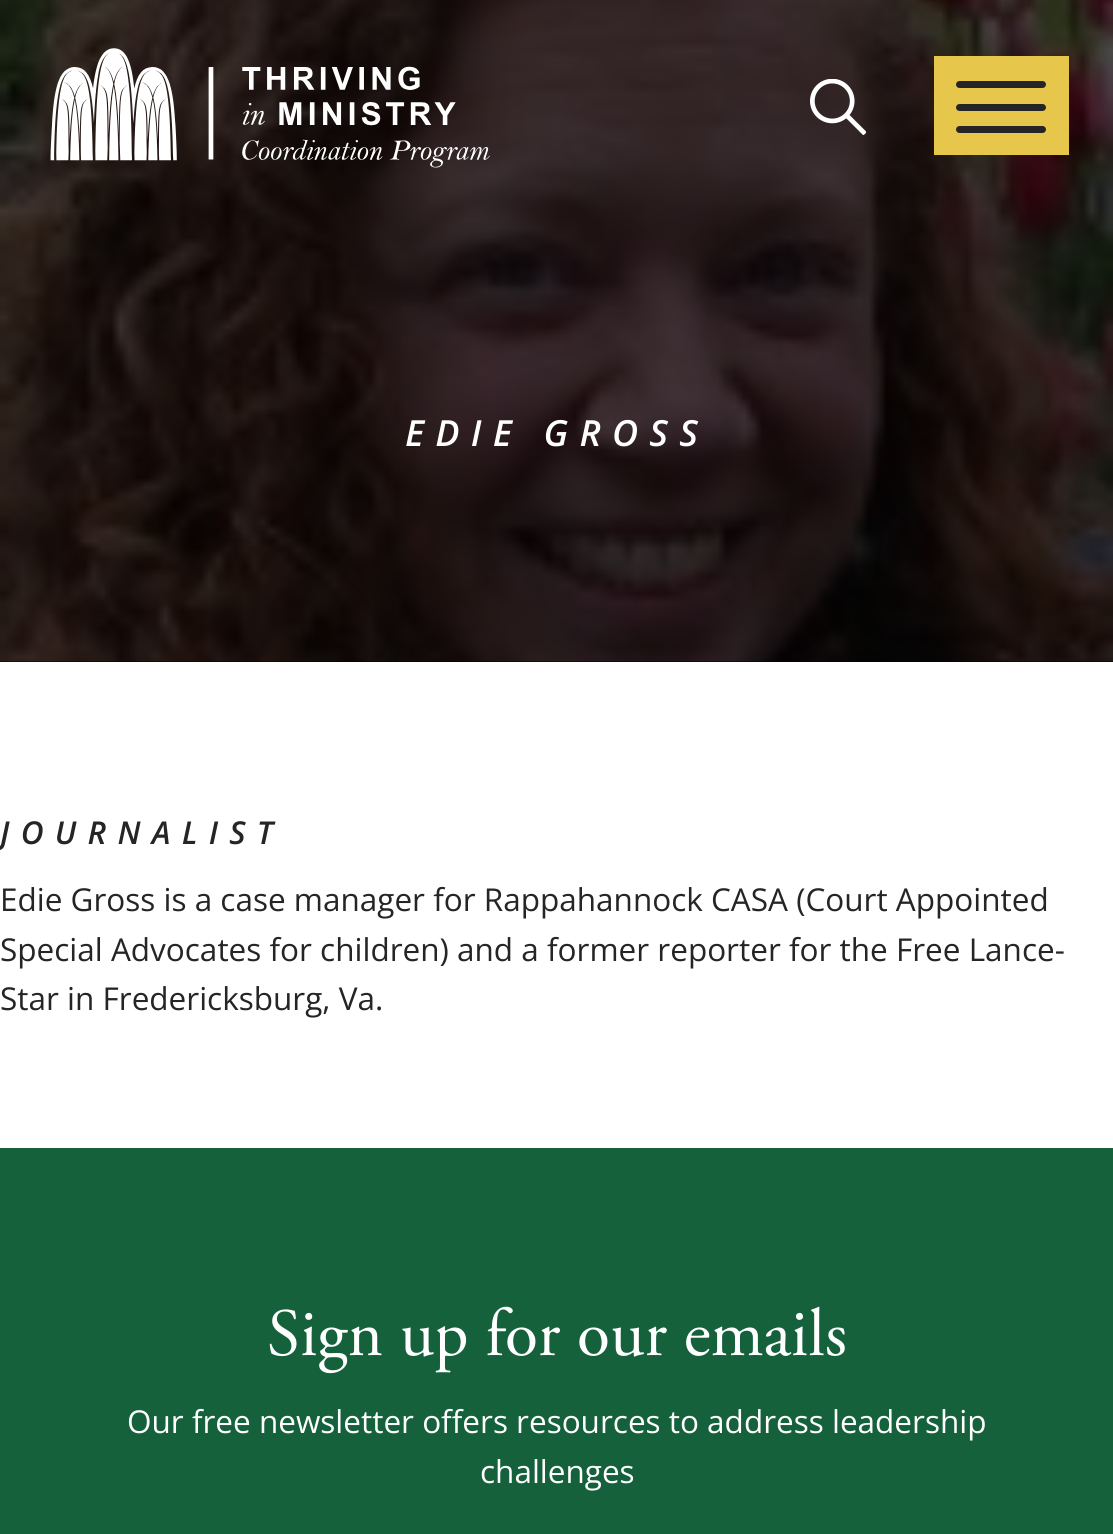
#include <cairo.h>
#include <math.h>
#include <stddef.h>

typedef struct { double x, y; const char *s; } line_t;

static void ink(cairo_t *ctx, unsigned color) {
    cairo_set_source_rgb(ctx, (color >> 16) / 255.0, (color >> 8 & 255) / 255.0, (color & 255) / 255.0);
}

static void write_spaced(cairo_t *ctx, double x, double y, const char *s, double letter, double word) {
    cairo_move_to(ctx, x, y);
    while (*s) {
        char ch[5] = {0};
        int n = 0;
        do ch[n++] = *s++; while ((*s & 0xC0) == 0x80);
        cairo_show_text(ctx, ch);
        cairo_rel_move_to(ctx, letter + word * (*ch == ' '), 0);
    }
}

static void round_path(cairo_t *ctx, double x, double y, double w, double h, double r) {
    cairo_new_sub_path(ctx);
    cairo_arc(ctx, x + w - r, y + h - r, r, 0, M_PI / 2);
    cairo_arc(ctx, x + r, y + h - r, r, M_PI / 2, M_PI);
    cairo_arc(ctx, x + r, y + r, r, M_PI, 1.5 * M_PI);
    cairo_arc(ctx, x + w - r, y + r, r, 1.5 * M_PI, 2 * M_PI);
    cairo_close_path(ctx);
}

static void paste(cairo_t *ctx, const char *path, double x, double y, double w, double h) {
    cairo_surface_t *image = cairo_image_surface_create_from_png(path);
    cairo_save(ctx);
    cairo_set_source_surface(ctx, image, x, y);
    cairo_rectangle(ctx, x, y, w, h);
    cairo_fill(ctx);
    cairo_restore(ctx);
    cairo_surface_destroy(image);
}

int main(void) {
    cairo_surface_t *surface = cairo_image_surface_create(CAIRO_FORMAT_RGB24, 1113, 1534);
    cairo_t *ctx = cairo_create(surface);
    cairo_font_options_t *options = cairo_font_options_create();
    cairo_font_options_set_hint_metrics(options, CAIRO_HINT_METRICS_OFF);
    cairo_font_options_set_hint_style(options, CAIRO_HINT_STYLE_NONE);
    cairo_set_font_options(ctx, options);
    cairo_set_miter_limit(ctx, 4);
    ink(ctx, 0xFFFFFF);
    cairo_paint(ctx);
    ink(ctx, 0x000000);
    cairo_rectangle(ctx, 0, 661, 1113, 1);
    cairo_fill(ctx);
    paste(ctx, "media/3.png", 0, 0, 1113, 662);
    paste(ctx, "media/1.png", 50, 48, 440, 120);
    paste(ctx, "media/2.png", 810, 79, 56, 56);
    ink(ctx, 0xE6C74B);
    cairo_rectangle(ctx, 934, 56, 135, 99);
    cairo_fill(ctx);
    ink(ctx, 0x252525);
    round_path(ctx, 956, 81, 90, 7, 3.5);
    cairo_fill(ctx);
    round_path(ctx, 956, 104, 90, 7, 3.5);
    cairo_fill(ctx);
    round_path(ctx, 956, 126, 90, 7, 3.5);
    cairo_fill(ctx);
    cairo_select_font_face(ctx, "Open Sans SemiBold", CAIRO_FONT_SLANT_ITALIC, CAIRO_FONT_WEIGHT_NORMAL);
    cairo_set_font_size(ctx, 36);
    ink(ctx, 0xFFFFFF);
    write_spaced(ctx, 405, 446, "EDIE GROSS", 11.25, 0);
    cairo_set_font_size(ctx, 31.5);
    ink(ctx, 0x252525);
    write_spaced(ctx, 0, 844, "JOURNALIST", 11.25, 0);
    cairo_select_font_face(ctx, "Open Sans", CAIRO_FONT_SLANT_NORMAL, CAIRO_FONT_WEIGHT_NORMAL);
    {
        static const line_t items[] = {
            {0, 911, "Edie Gross is a case manager for Rappahannock CASA (Court Appointed"},
            {0, 961, "Special Advocates for children) and a former reporter for the Free Lance-"},
            {0, 1010, "Star in Fredericksburg, Va."},
        };
        for (size_t i = 0; i < sizeof items / sizeof *items; i++) {
            cairo_move_to(ctx, items[i].x, items[i].y);
            cairo_show_text(ctx, items[i].s);
        }
    }
    ink(ctx, 0x15613C);
    cairo_rectangle(ctx, 0, 1148, 1113, 386);
    cairo_fill(ctx);
    cairo_select_font_face(ctx, "Adobe Garamond", CAIRO_FONT_SLANT_NORMAL, CAIRO_FONT_WEIGHT_NORMAL);
    cairo_set_font_size(ctx, 67.5);
    ink(ctx, 0xFFFFFF);
    cairo_move_to(ctx, 267, 1355);
    cairo_show_text(ctx, "Sign up for our emails");
    cairo_select_font_face(ctx, "Open Sans", CAIRO_FONT_SLANT_NORMAL, CAIRO_FONT_WEIGHT_NORMAL);
    cairo_set_font_size(ctx, 31.5);
    cairo_move_to(ctx, 127, 1433);
    cairo_show_text(ctx, "Our free newsletter offers resources to address leadership");
    cairo_move_to(ctx, 480, 1483);
    cairo_show_text(ctx, "challenges");
    cairo_surface_write_to_png(surface, "image.png");
    cairo_font_options_destroy(options);
    cairo_destroy(ctx);
    cairo_surface_destroy(surface);
    return 0;
}
